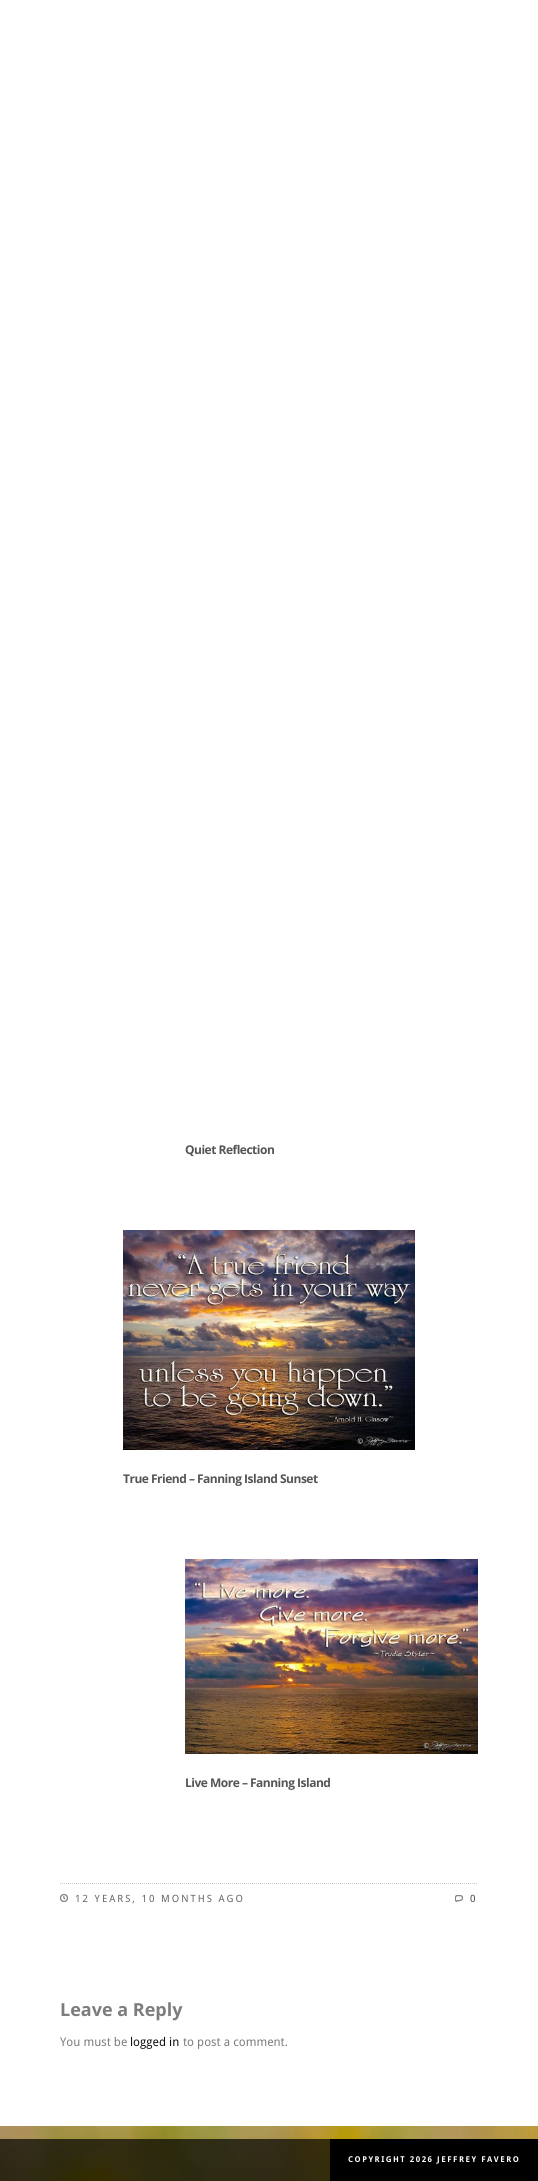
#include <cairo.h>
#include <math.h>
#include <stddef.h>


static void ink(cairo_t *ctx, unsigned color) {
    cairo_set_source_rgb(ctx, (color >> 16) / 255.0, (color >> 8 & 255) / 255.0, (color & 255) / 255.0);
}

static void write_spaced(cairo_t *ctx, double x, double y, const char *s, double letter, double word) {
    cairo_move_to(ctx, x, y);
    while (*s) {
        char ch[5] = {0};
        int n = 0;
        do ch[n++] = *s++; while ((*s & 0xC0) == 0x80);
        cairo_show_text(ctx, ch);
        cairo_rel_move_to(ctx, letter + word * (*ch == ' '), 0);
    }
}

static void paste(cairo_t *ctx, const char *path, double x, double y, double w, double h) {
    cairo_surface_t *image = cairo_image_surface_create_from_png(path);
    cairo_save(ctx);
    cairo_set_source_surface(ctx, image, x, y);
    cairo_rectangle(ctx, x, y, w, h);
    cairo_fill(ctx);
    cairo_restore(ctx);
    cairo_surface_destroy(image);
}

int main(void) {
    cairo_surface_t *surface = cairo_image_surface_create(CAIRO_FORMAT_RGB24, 538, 2181);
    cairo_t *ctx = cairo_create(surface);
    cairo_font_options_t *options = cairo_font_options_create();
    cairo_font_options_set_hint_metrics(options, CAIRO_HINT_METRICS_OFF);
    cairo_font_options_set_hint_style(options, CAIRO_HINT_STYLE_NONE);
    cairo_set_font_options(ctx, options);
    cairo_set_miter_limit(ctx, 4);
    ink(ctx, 0xFFFFFF);
    cairo_paint(ctx);
    cairo_select_font_face(ctx, "Open Sans", CAIRO_FONT_SLANT_NORMAL, CAIRO_FONT_WEIGHT_BOLD);
    cairo_set_font_size(ctx, 12);
    ink(ctx, 0x555555);
    write_spaced(ctx, 185, 1154, "Quiet Reflection", -0.5, 0);
    paste(ctx, "media/1.png", 123, 1230, 292, 220);
    write_spaced(ctx, 123, 1483, "True Friend – Fanning Island Sunset", -0.5, 0);
    paste(ctx, "media/2.png", 185, 1559, 293, 195);
    write_spaced(ctx, 185, 1787, "Live More – Fanning Island", -0.5, 0);
    cairo_new_path(ctx);
    cairo_move_to(ctx, 60, 1883.5);
    cairo_line_to(ctx, 478, 1883.5);
    ink(ctx, 0xCCCCCC);
    cairo_set_line_width(ctx, 1);
    cairo_set_dash(ctx, (double[]){1, 1}, 2, 0);
    cairo_stroke(ctx);
    paste(ctx, "media/3.png", 60, 1894, 8, 8);
    cairo_select_font_face(ctx, "Droid Sans", CAIRO_FONT_SLANT_NORMAL, CAIRO_FONT_WEIGHT_NORMAL);
    cairo_set_font_size(ctx, 10);
    ink(ctx, 0x666666);
    write_spaced(ctx, 75, 1902, "12 YEARS, 10 MONTHS AGO", 2, 0);
    paste(ctx, "media/4.png", 455, 1895, 8, 7);
    ink(ctx, 0x464646);
    write_spaced(ctx, 470, 1902, "0", 2, 0);
    cairo_select_font_face(ctx, "Open Sans", CAIRO_FONT_SLANT_NORMAL, CAIRO_FONT_WEIGHT_BOLD);
    cairo_set_font_size(ctx, 18);
    ink(ctx, 0x7D7D7D);
    cairo_move_to(ctx, 60, 2016);
    cairo_show_text(ctx, "Leave a Reply");
    cairo_select_font_face(ctx, "Droid Sans", CAIRO_FONT_SLANT_NORMAL, CAIRO_FONT_WEIGHT_NORMAL);
    cairo_set_font_size(ctx, 12);
    cairo_move_to(ctx, 60, 2046);
    cairo_show_text(ctx, "You must be");
    ink(ctx, 0x111111);
    cairo_move_to(ctx, 130, 2046);
    cairo_show_text(ctx, "logged in");
    ink(ctx, 0x7D7D7D);
    cairo_move_to(ctx, 183, 2046);
    cairo_show_text(ctx, "to post a comment.");
    paste(ctx, "media/5.png", 0, 2126, 538, 55);
    cairo_set_source_rgba(ctx, 0, 0, 0, 0.7);
    cairo_rectangle(ctx, 0, 2139, 330, 42);
    cairo_fill(ctx);
    ink(ctx, 0x000000);
    cairo_rectangle(ctx, 330, 2139, 208, 42);
    cairo_fill(ctx);
    cairo_select_font_face(ctx, "Droid Sans", CAIRO_FONT_SLANT_NORMAL, CAIRO_FONT_WEIGHT_BOLD);
    cairo_set_font_size(ctx, 8);
    ink(ctx, 0xFFFFFF);
    write_spaced(ctx, 348, 2162, "COPYRIGHT 2026 JEFFREY FAVERO", 1.5, 0);
    cairo_surface_write_to_png(surface, "image.png");
    cairo_font_options_destroy(options);
    cairo_destroy(ctx);
    cairo_surface_destroy(surface);
    return 0;
}
